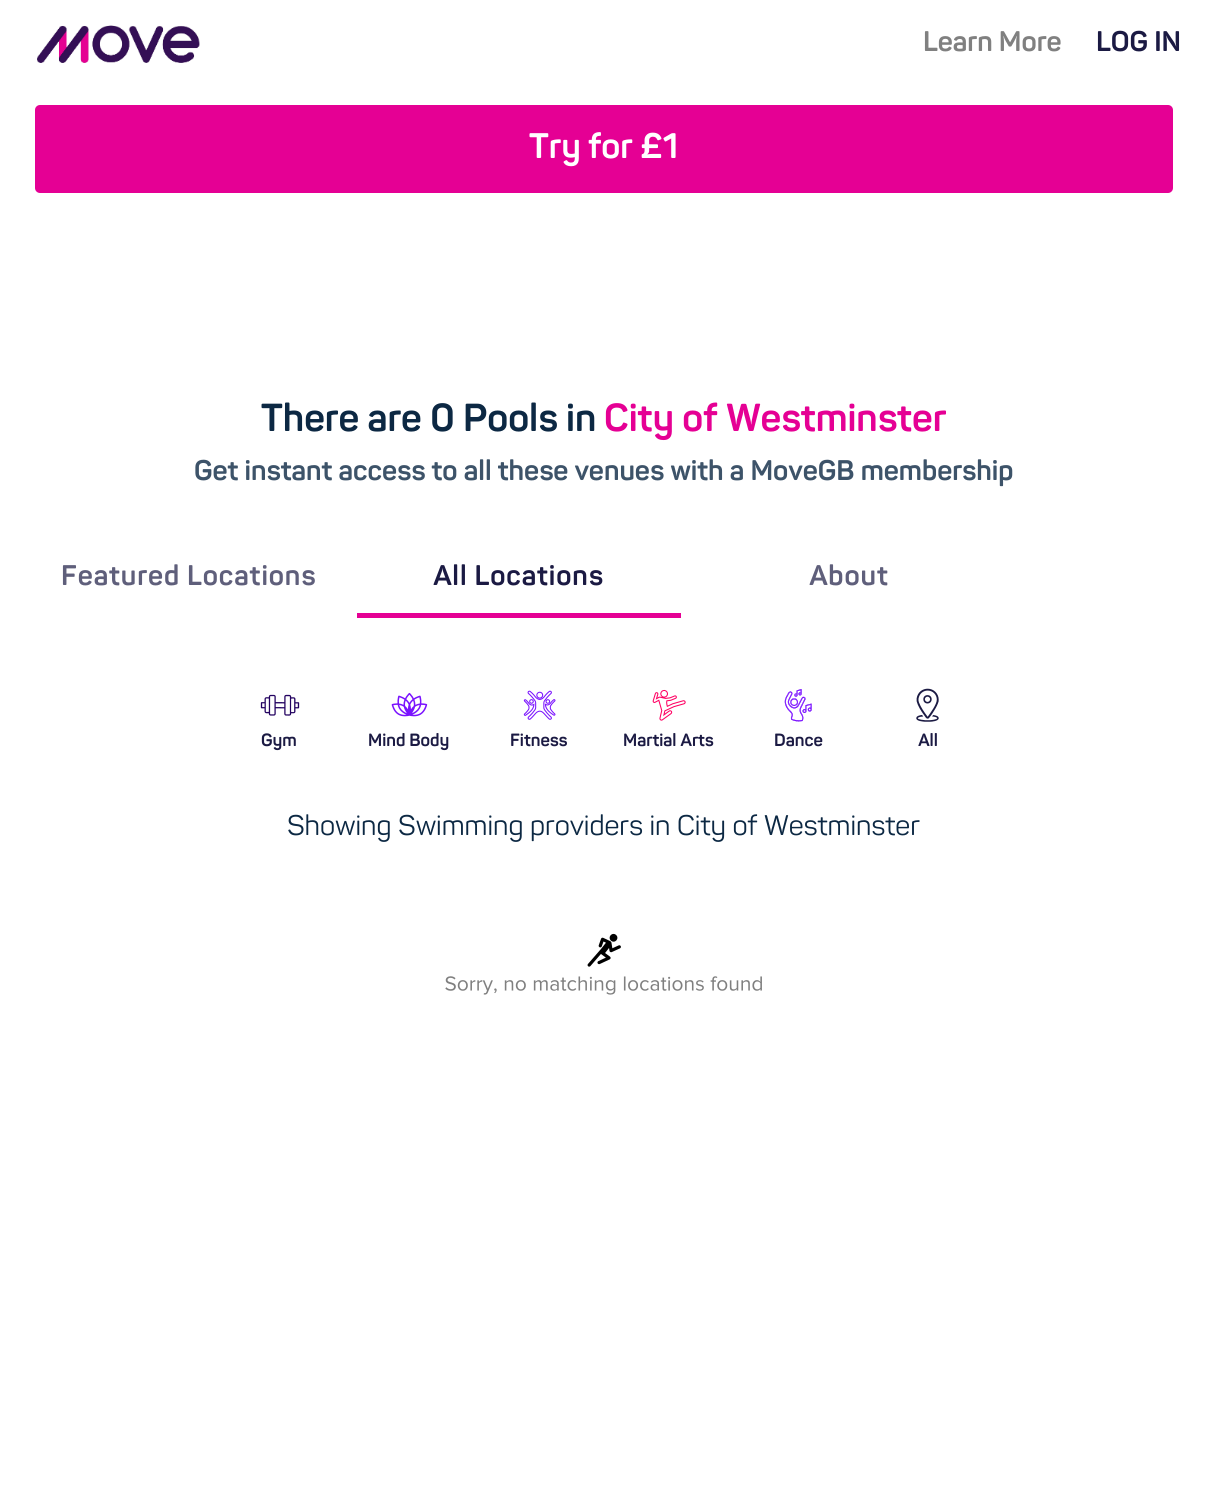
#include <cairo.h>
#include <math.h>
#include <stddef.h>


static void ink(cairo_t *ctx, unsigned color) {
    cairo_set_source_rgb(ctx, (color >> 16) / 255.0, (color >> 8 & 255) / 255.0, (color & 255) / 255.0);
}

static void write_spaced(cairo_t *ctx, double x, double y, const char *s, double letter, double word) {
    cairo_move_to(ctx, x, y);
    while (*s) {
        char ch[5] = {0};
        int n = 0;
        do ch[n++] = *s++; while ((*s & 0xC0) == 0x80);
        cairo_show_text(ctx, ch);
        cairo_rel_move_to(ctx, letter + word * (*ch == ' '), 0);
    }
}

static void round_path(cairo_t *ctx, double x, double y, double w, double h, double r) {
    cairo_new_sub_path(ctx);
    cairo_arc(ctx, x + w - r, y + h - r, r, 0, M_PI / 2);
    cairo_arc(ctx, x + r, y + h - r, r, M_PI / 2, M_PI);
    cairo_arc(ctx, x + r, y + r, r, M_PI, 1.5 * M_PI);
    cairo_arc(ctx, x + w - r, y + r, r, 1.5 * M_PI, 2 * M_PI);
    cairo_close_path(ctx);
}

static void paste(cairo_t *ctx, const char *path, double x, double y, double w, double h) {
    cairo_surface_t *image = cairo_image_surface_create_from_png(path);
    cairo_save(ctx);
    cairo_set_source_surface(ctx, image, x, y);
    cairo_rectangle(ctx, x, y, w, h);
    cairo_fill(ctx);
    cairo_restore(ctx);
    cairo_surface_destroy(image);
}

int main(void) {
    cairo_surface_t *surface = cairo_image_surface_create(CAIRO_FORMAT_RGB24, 1207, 1492);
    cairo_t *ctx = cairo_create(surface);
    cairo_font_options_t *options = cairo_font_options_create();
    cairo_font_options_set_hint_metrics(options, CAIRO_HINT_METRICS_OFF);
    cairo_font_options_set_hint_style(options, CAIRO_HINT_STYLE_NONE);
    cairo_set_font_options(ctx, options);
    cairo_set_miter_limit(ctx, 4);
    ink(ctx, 0xFFFFFF);
    cairo_paint(ctx);
    paste(ctx, "media/1.png", 37, 25, 163, 38);
    cairo_select_font_face(ctx, "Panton", CAIRO_FONT_SLANT_NORMAL, CAIRO_FONT_WEIGHT_BOLD);
    cairo_set_font_size(ctx, 28);
    ink(ctx, 0x808080);
    cairo_move_to(ctx, 923, 51);
    cairo_show_text(ctx, "Learn More");
    ink(ctx, 0x1B1A43);
    cairo_move_to(ctx, 1096, 51);
    cairo_show_text(ctx, "LOG IN");
    ink(ctx, 0xE50094);
    round_path(ctx, 35, 105, 1138, 88, 5);
    cairo_fill(ctx);
    cairo_set_font_size(ctx, 35);
    ink(ctx, 0xFFFFFF);
    cairo_move_to(ctx, 529, 158);
    cairo_show_text(ctx, "Try for £1");
    cairo_set_font_size(ctx, 38.5);
    ink(ctx, 0x0C2843);
    cairo_move_to(ctx, 261, 431);
    cairo_show_text(ctx, "There are 0 Pools in");
    ink(ctx, 0xE50094);
    cairo_move_to(ctx, 604, 431);
    cairo_show_text(ctx, "City of Westminster");
    cairo_set_font_size(ctx, 28);
    ink(ctx, 0x3D5369);
    cairo_move_to(ctx, 194, 480);
    cairo_show_text(ctx, "Get instant access to all these venues with a MoveGB membership");
    ink(ctx, 0x5F5F7B);
    write_spaced(ctx, 61, 585, "Featured Locations", 0.9, 0);
    ink(ctx, 0xE50094);
    cairo_rectangle(ctx, 357, 613, 324, 5);
    cairo_fill(ctx);
    ink(ctx, 0x1B1A43);
    write_spaced(ctx, 433, 585, "All Locations", 0.9, 0);
    ink(ctx, 0x5F5F7B);
    write_spaced(ctx, 809, 585, "About", 0.9, 0);
    paste(ctx, "media/2.png", 260, 694, 40, 22);
    cairo_set_font_size(ctx, 17.5);
    ink(ctx, 0x1B1A43);
    cairo_move_to(ctx, 261, 746);
    cairo_show_text(ctx, "Gym");
    paste(ctx, "media/3.png", 391, 692, 37, 25);
    cairo_move_to(ctx, 368, 746);
    cairo_show_text(ctx, "Mind Body");
    paste(ctx, "media/4.png", 523, 690, 33, 30);
    cairo_move_to(ctx, 510, 746);
    cairo_show_text(ctx, "Fitness");
    paste(ctx, "media/5.png", 652, 689, 34, 32);
    cairo_move_to(ctx, 623, 746);
    cairo_show_text(ctx, "Martial Arts");
    paste(ctx, "media/6.png", 784, 689, 28, 33);
    cairo_move_to(ctx, 774, 746);
    cairo_show_text(ctx, "Dance");
    paste(ctx, "media/7.png", 916, 688, 23, 34);
    cairo_move_to(ctx, 918, 746);
    cairo_show_text(ctx, "All");
    cairo_select_font_face(ctx, "Panton", CAIRO_FONT_SLANT_NORMAL, CAIRO_FONT_WEIGHT_NORMAL);
    cairo_set_font_size(ctx, 28);
    ink(ctx, 0x0C2843);
    cairo_move_to(ctx, 287, 835);
    cairo_show_text(ctx, "Showing Swimming providers in City of Westminster");
    paste(ctx, "media/8.png", 587, 933, 34, 34);
    paste(ctx, "media/9.png", 445, 976, 317, 19);
    cairo_surface_write_to_png(surface, "image.png");
    cairo_font_options_destroy(options);
    cairo_destroy(ctx);
    cairo_surface_destroy(surface);
    return 0;
}
